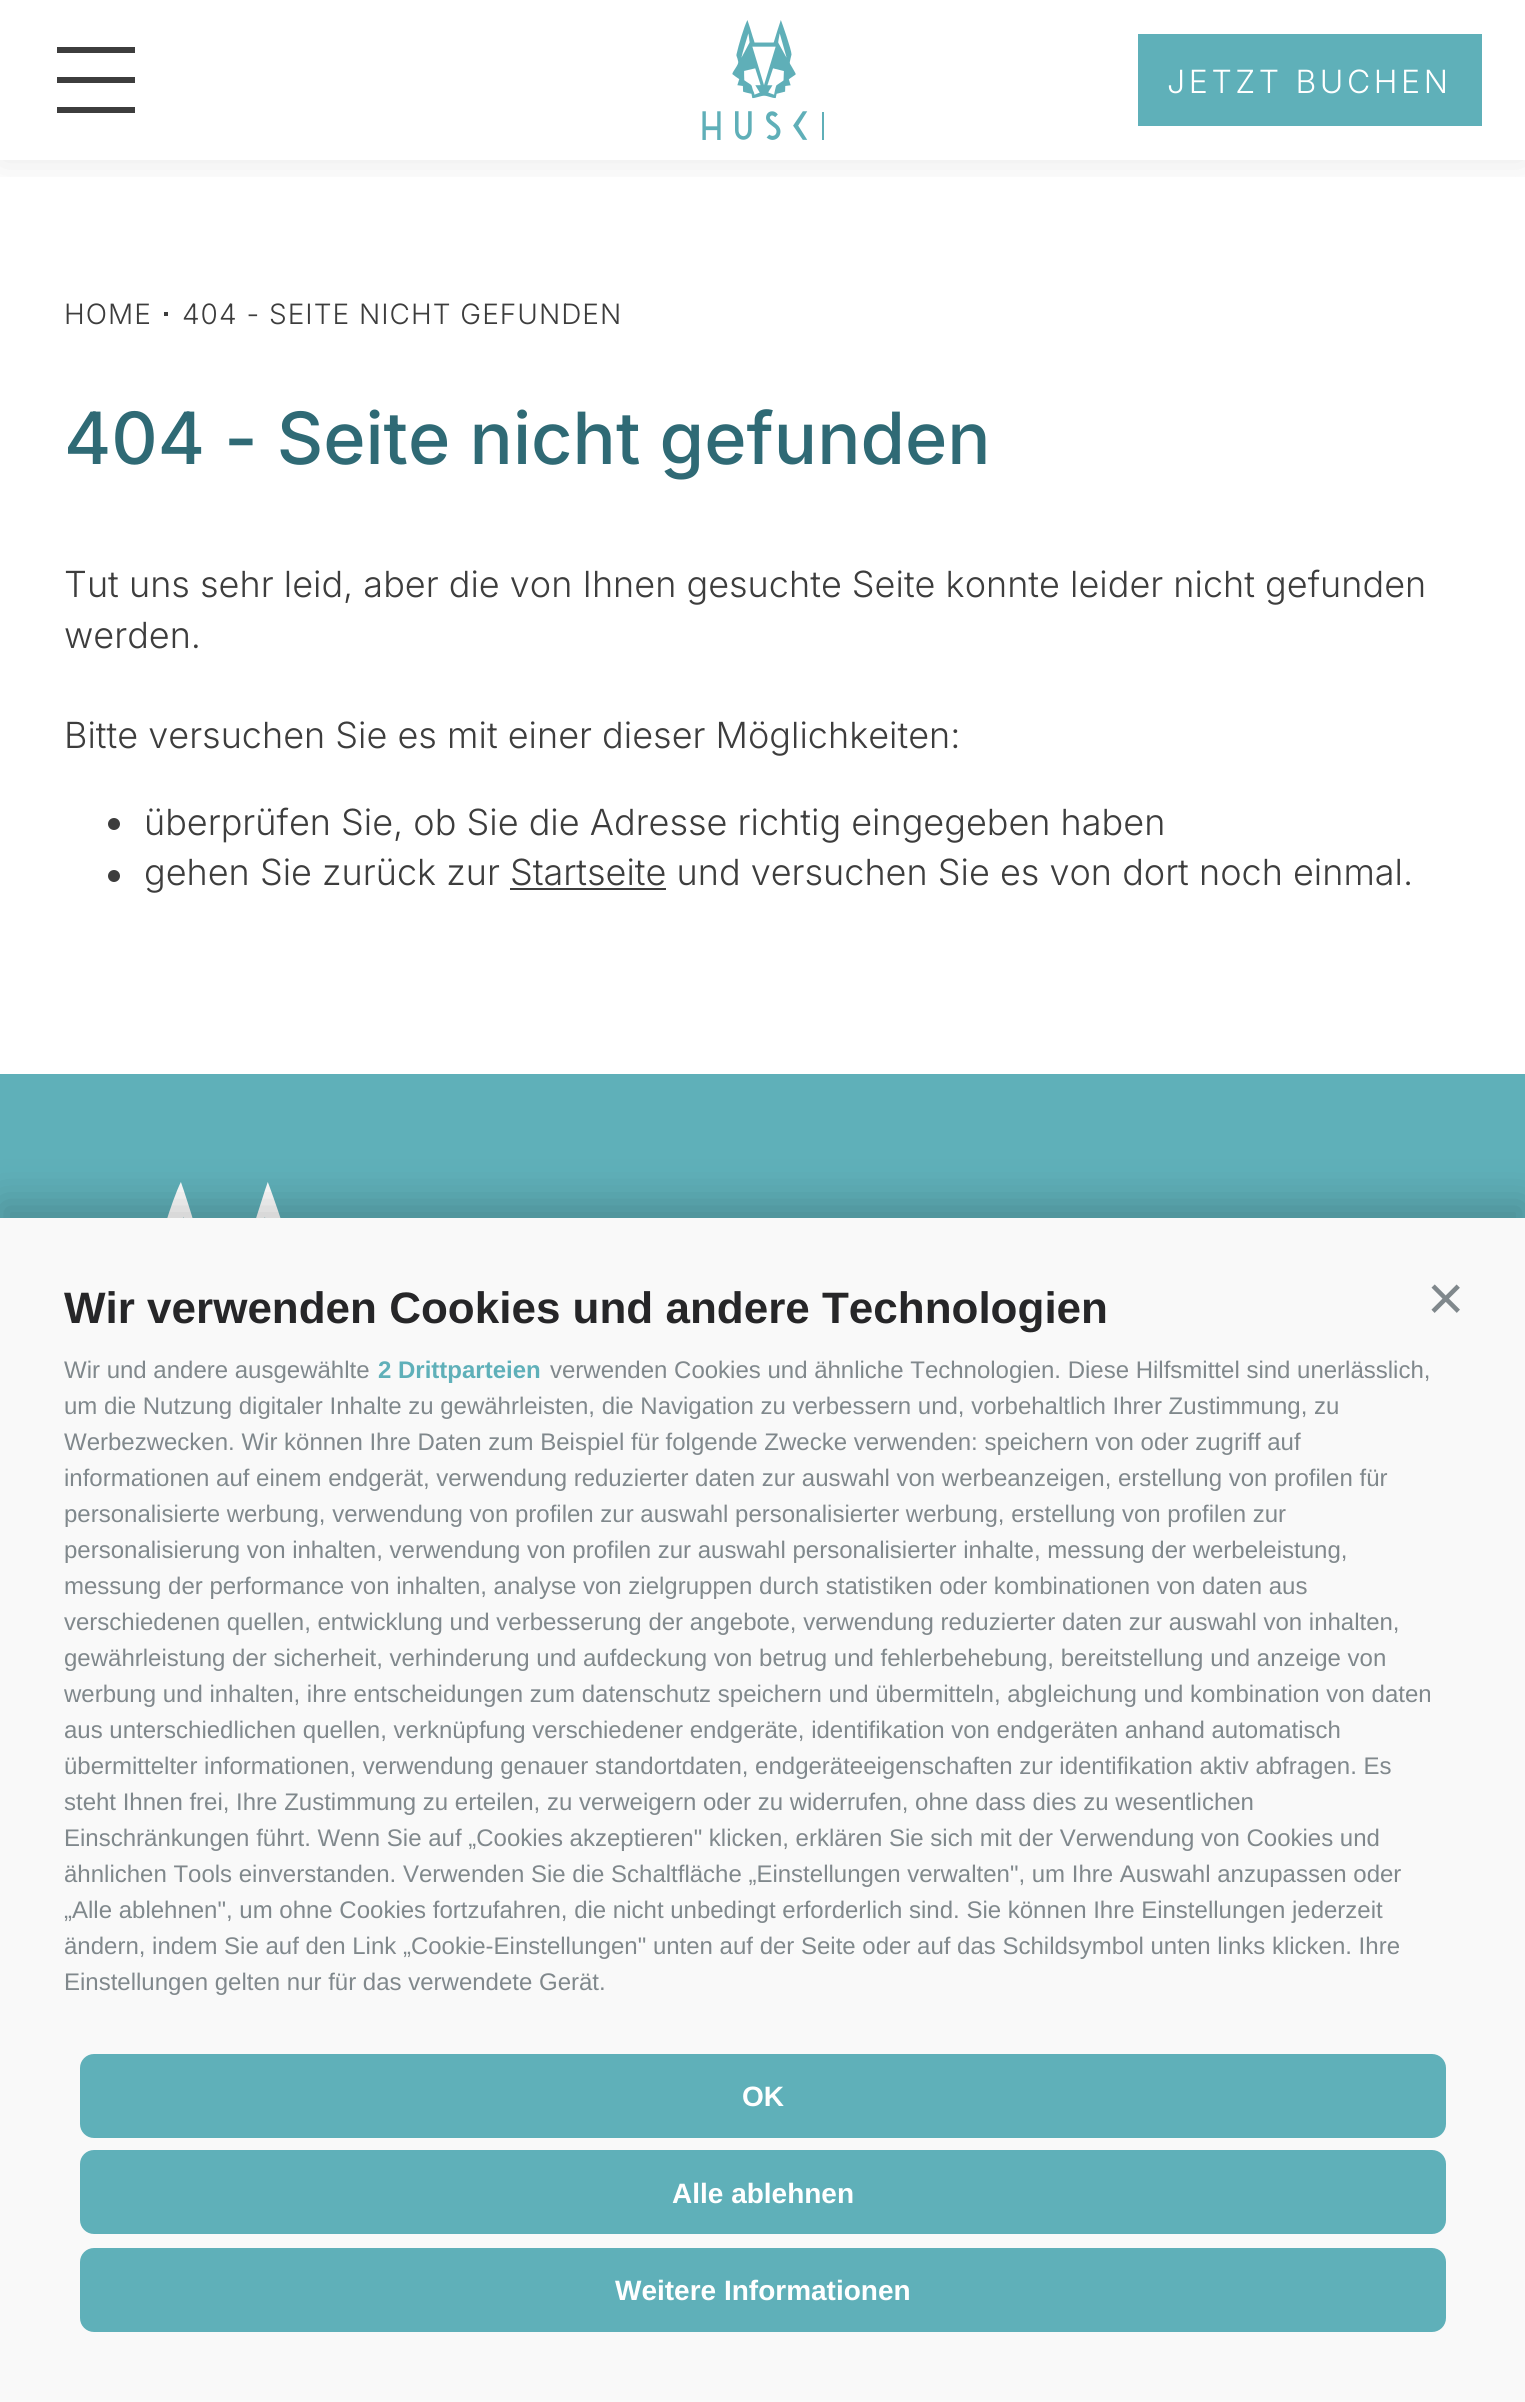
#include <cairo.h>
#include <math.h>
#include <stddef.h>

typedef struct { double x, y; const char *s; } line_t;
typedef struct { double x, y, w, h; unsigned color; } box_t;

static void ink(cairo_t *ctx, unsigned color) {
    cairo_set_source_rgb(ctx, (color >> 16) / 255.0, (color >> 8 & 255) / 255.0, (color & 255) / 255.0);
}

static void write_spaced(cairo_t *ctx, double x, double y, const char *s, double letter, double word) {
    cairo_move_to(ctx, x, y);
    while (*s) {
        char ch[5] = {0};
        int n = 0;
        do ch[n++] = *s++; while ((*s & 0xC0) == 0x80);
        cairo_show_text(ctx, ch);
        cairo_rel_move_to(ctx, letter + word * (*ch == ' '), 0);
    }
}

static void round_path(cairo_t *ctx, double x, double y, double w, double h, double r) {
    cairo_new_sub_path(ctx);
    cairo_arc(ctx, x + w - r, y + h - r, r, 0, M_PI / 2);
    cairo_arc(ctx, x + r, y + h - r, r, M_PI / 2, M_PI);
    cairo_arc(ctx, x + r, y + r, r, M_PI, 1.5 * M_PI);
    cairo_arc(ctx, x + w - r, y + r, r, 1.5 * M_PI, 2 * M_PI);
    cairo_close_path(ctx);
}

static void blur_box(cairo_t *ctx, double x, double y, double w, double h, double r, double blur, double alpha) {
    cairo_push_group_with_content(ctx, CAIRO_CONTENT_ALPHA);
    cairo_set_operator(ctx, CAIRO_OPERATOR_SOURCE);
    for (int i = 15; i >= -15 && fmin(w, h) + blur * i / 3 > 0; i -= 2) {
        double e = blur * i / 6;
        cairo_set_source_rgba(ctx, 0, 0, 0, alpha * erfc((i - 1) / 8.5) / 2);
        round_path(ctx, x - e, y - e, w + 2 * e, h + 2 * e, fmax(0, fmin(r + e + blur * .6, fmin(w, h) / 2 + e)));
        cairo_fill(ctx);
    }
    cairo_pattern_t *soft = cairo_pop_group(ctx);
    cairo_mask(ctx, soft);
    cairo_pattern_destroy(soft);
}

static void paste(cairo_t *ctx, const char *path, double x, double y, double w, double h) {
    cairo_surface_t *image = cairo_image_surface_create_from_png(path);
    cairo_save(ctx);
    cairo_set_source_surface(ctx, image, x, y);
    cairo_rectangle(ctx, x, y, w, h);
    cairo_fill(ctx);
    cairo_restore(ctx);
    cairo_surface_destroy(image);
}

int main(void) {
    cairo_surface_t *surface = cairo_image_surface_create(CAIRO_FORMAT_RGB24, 1525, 2402);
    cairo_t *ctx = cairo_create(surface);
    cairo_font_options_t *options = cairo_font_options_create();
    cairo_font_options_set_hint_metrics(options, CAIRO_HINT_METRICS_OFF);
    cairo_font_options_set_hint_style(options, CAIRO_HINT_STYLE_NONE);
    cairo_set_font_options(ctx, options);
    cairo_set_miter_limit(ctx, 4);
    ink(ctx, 0xFFFFFF);
    cairo_paint(ctx);
    cairo_save(ctx);
    cairo_rectangle(ctx, 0, 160, 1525, 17);
    cairo_clip(ctx);
    ink(ctx, 0x000000);
    blur_box(ctx, 0, 0, 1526, 160, 0, 20, 0.1);
    cairo_restore(ctx);
    {
        static const box_t items[] = {
            {57, 47, 78, 6, 0x3D3D3D},
            {57, 77, 78, 6, 0x3D3D3D},
            {57, 107, 78, 6, 0x3D3D3D},
        };
        for (size_t i = 0; i < sizeof items / sizeof *items; i++) {
            ink(ctx, items[i].color);
            cairo_rectangle(ctx, items[i].x, items[i].y, items[i].w, items[i].h);
            cairo_fill(ctx);
        }
    }
    paste(ctx, "media/1.png", 702, 20, 122, 120);
    ink(ctx, 0x5FB0B9);
    cairo_rectangle(ctx, 1138, 34, 344, 92);
    cairo_fill(ctx);
    cairo_select_font_face(ctx, "Inter Light", CAIRO_FONT_SLANT_NORMAL, CAIRO_FONT_WEIGHT_NORMAL);
    cairo_set_font_size(ctx, 32);
    ink(ctx, 0xFFFFFF);
    write_spaced(ctx, 1167, 93, "JETZT BUCHEN", 3.6, 0);
    cairo_set_font_size(ctx, 28);
    ink(ctx, 0x3D3D3D);
    write_spaced(ctx, 64, 324, "HOME", 1, 0);
    cairo_rectangle(ctx, 164, 312, 4, 4);
    cairo_fill(ctx);
    write_spaced(ctx, 182, 324, "404 - SEITE NICHT GEFUNDEN", 1, 0);
    cairo_select_font_face(ctx, "Inter Medium", CAIRO_FONT_SLANT_NORMAL, CAIRO_FONT_WEIGHT_NORMAL);
    cairo_set_font_size(ctx, 72);
    ink(ctx, 0x2F6A75);
    cairo_move_to(ctx, 64, 464);
    cairo_show_text(ctx, "404 - Seite nicht gefunden");
    cairo_select_font_face(ctx, "Inter Light", CAIRO_FONT_SLANT_NORMAL, CAIRO_FONT_WEIGHT_NORMAL);
    cairo_set_font_size(ctx, 36);
    ink(ctx, 0x3D3D3D);
    {
        static const line_t items[] = {
            {64, 597, "Tut uns sehr leid, aber die von Ihnen gesuchte Seite konnte leider nicht gefunden"},
            {64, 648, "werden."},
            {64, 748, "Bitte versuchen Sie es mit einer dieser Möglichkeiten:"},
        };
        for (size_t i = 0; i < sizeof items / sizeof *items; i++) {
            cairo_move_to(ctx, items[i].x, items[i].y);
            cairo_show_text(ctx, items[i].s);
        }
    }
    cairo_new_path(ctx);
    cairo_arc(ctx, 114, 824, 6, 0, 2 * M_PI);
    cairo_fill(ctx);
    cairo_move_to(ctx, 144, 835);
    cairo_show_text(ctx, "überprüfen Sie, ob Sie die Adresse richtig eingegeben haben");
    cairo_new_path(ctx);
    cairo_arc(ctx, 114, 876, 6, 0, 2 * M_PI);
    cairo_fill(ctx);
    cairo_move_to(ctx, 144, 885);
    cairo_show_text(ctx, "gehen Sie zurück zur Startseite und versuchen Sie es von dort noch einmal.");
    cairo_rectangle(ctx, 510, 888, 156, 2);
    cairo_fill(ctx);
    ink(ctx, 0x5FB0B9);
    cairo_rectangle(ctx, 0, 1074, 1525, 144);
    cairo_fill(ctx);
    paste(ctx, "media/2.png", 167, 1182, 114, 36);
    ink(ctx, 0x000000);
    blur_box(ctx, 0, 1202, 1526, 1184, 0, 20, 0.2);
    ink(ctx, 0xF9F9F9);
    cairo_rectangle(ctx, 0, 1218, 1525, 1184);
    cairo_fill(ctx);
    cairo_select_font_face(ctx, "Liberation Sans", CAIRO_FONT_SLANT_NORMAL, CAIRO_FONT_WEIGHT_BOLD);
    cairo_set_font_size(ctx, 44);
    ink(ctx, 0x262628);
    cairo_move_to(ctx, 64, 1323);
    cairo_show_text(ctx, "Wir verwenden Cookies und andere Technologien");
    cairo_select_font_face(ctx, "Liberation Sans", CAIRO_FONT_SLANT_NORMAL, CAIRO_FONT_WEIGHT_NORMAL);
    cairo_set_font_size(ctx, 64);
    ink(ctx, 0x80888C);
    cairo_move_to(ctx, 1427, 1320);
    cairo_show_text(ctx, "×");
    cairo_set_font_size(ctx, 24);
    cairo_move_to(ctx, 64, 1378);
    cairo_show_text(ctx, "Wir und andere ausgewählte");
    cairo_select_font_face(ctx, "Liberation Sans", CAIRO_FONT_SLANT_NORMAL, CAIRO_FONT_WEIGHT_BOLD);
    ink(ctx, 0x5FB0B9);
    cairo_move_to(ctx, 378, 1378);
    cairo_show_text(ctx, "2 Drittparteien");
    cairo_select_font_face(ctx, "Liberation Sans", CAIRO_FONT_SLANT_NORMAL, CAIRO_FONT_WEIGHT_NORMAL);
    ink(ctx, 0x80888C);
    {
        static const line_t items[] = {
            {550, 1378, "verwenden Cookies und ähnliche Technologien. Diese Hilfsmittel sind unerlässlich,"},
            {64, 1414, "um die Nutzung digitaler Inhalte zu gewährleisten, die Navigation zu verbessern und, vorbehaltlich Ihrer Zustimmung, zu"},
            {64, 1450, "Werbezwecken. Wir können Ihre Daten zum Beispiel für folgende Zwecke verwenden: speichern von oder zugriff auf"},
            {64, 1486, "informationen auf einem endgerät, verwendung reduzierter daten zur auswahl von werbeanzeigen, erstellung von profilen für"},
            {64, 1522, "personalisierte werbung, verwendung von profilen zur auswahl personalisierter werbung, erstellung von profilen zur"},
            {64, 1558, "personalisierung von inhalten, verwendung von profilen zur auswahl personalisierter inhalte, messung der werbeleistung,"},
            {64, 1594, "messung der performance von inhalten, analyse von zielgruppen durch statistiken oder kombinationen von daten aus"},
            {64, 1630, "verschiedenen quellen, entwicklung und verbesserung der angebote, verwendung reduzierter daten zur auswahl von inhalten,"},
            {64, 1666, "gewährleistung der sicherheit, verhinderung und aufdeckung von betrug und fehlerbehebung, bereitstellung und anzeige von"},
            {64, 1702, "werbung und inhalten, ihre entscheidungen zum datenschutz speichern und übermitteln, abgleichung und kombination von daten"},
            {64, 1738, "aus unterschiedlichen quellen, verknüpfung verschiedener endgeräte, identifikation von endgeräten anhand automatisch"},
            {64, 1774, "übermittelter informationen, verwendung genauer standortdaten, endgeräteeigenschaften zur identifikation aktiv abfragen. Es"},
            {64, 1810, "steht Ihnen frei, Ihre Zustimmung zu erteilen, zu verweigern oder zu widerrufen, ohne dass dies zu wesentlichen"},
            {64, 1846, "Einschränkungen führt. Wenn Sie auf „Cookies akzeptieren\" klicken, erklären Sie sich mit der Verwendung von Cookies und"},
            {64, 1882, "ähnlichen Tools einverstanden. Verwenden Sie die Schaltfläche „Einstellungen verwalten\", um Ihre Auswahl anzupassen oder"},
            {64, 1918, "„Alle ablehnen\", um ohne Cookies fortzufahren, die nicht unbedingt erforderlich sind. Sie können Ihre Einstellungen jederzeit"},
            {64, 1954, "ändern, indem Sie auf den Link „Cookie-Einstellungen\" unten auf der Seite oder auf das Schildsymbol unten links klicken. Ihre"},
            {64, 1990, "Einstellungen gelten nur für das verwendete Gerät."},
        };
        for (size_t i = 0; i < sizeof items / sizeof *items; i++) {
            cairo_move_to(ctx, items[i].x, items[i].y);
            cairo_show_text(ctx, items[i].s);
        }
    }
    ink(ctx, 0x5FB0B9);
    round_path(ctx, 80, 2054, 1366, 84, 14);
    cairo_fill(ctx);
    cairo_select_font_face(ctx, "Liberation Sans", CAIRO_FONT_SLANT_NORMAL, CAIRO_FONT_WEIGHT_BOLD);
    cairo_set_font_size(ctx, 28);
    ink(ctx, 0xFFFFFF);
    cairo_move_to(ctx, 742, 2106);
    cairo_show_text(ctx, "OK");
    ink(ctx, 0x5FB0B9);
    round_path(ctx, 80, 2150, 1366, 84, 14);
    cairo_fill(ctx);
    ink(ctx, 0xFFFFFF);
    cairo_move_to(ctx, 672, 2203);
    cairo_show_text(ctx, "Alle ablehnen");
    ink(ctx, 0x5FB0B9);
    round_path(ctx, 80, 2248, 1366, 84, 14);
    cairo_fill(ctx);
    ink(ctx, 0xFFFFFF);
    cairo_move_to(ctx, 615, 2300);
    cairo_show_text(ctx, "Weitere Informationen");
    cairo_surface_write_to_png(surface, "image.png");
    cairo_font_options_destroy(options);
    cairo_destroy(ctx);
    cairo_surface_destroy(surface);
    return 0;
}
